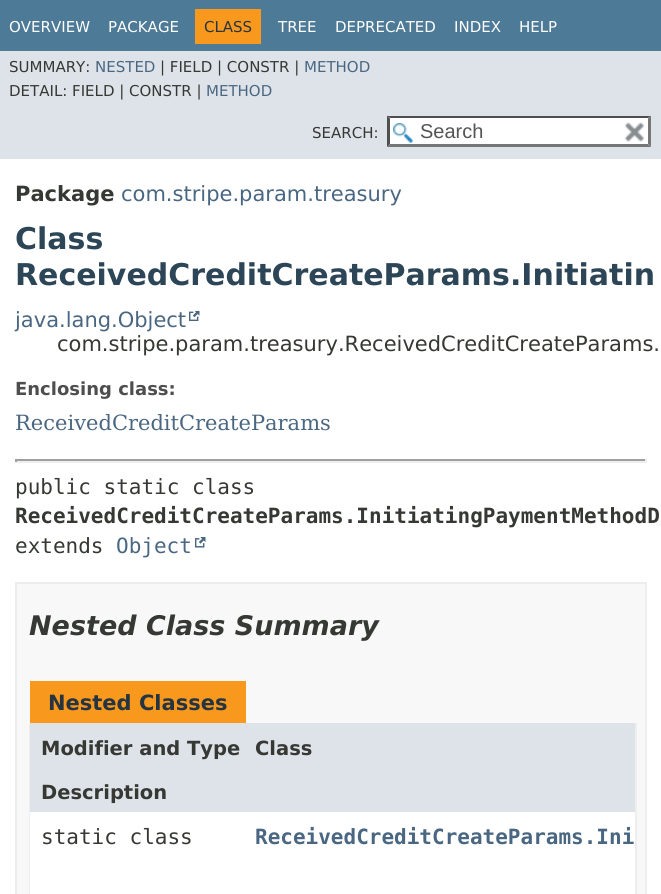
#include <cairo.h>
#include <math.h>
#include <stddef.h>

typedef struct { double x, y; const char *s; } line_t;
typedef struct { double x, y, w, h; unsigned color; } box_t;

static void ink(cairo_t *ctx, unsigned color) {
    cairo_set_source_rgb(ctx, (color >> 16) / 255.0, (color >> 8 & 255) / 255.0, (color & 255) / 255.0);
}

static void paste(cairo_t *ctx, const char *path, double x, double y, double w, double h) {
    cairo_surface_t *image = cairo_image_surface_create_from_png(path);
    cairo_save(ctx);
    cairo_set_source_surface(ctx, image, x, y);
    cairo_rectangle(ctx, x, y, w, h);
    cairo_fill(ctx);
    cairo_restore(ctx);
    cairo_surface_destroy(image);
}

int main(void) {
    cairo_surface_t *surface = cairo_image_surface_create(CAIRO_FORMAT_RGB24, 661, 894);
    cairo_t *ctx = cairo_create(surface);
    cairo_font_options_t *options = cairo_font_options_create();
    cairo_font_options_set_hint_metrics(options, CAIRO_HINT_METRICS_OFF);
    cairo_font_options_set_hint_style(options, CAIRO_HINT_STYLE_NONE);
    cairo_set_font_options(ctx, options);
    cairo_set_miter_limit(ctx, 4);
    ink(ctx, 0xFFFFFF);
    cairo_paint(ctx);
    ink(ctx, 0x4D7A97);
    cairo_rectangle(ctx, 0, 0, 661, 51);
    cairo_fill(ctx);
    cairo_select_font_face(ctx, "DejaVu Sans", CAIRO_FONT_SLANT_NORMAL, CAIRO_FONT_WEIGHT_NORMAL);
    cairo_set_font_size(ctx, 15);
    ink(ctx, 0xFFFFFF);
    cairo_move_to(ctx, 9, 32);
    cairo_show_text(ctx, "OVERVIEW");
    cairo_move_to(ctx, 108, 32);
    cairo_show_text(ctx, "PACKAGE");
    ink(ctx, 0xF8981D);
    cairo_rectangle(ctx, 195, 9, 66, 35);
    cairo_fill(ctx);
    ink(ctx, 0x253441);
    cairo_move_to(ctx, 204, 32);
    cairo_show_text(ctx, "CLASS");
    ink(ctx, 0xFFFFFF);
    {
        static const line_t items[] = {
            {278, 32, "TREE"},
            {335, 32, "DEPRECATED"},
            {454, 32, "INDEX"},
            {519, 32, "HELP"},
        };
        for (size_t i = 0; i < sizeof items / sizeof *items; i++) {
            cairo_move_to(ctx, items[i].x, items[i].y);
            cairo_show_text(ctx, items[i].s);
        }
    }
    ink(ctx, 0xDEE3E9);
    cairo_rectangle(ctx, 0, 51, 661, 108);
    cairo_fill(ctx);
    ink(ctx, 0x353833);
    cairo_move_to(ctx, 9, 72);
    cairo_show_text(ctx, "SUMMARY:");
    ink(ctx, 0x4A6782);
    cairo_move_to(ctx, 95, 72);
    cairo_show_text(ctx, "NESTED");
    ink(ctx, 0x353833);
    cairo_move_to(ctx, 160, 72);
    cairo_show_text(ctx, "| FIELD | CONSTR |");
    ink(ctx, 0x4A6782);
    cairo_move_to(ctx, 304, 72);
    cairo_show_text(ctx, "METHOD");
    ink(ctx, 0x353833);
    cairo_move_to(ctx, 9, 96);
    cairo_show_text(ctx, "DETAIL: FIELD | CONSTR |");
    ink(ctx, 0x4A6782);
    cairo_move_to(ctx, 206, 96);
    cairo_show_text(ctx, "METHOD");
    ink(ctx, 0x353833);
    cairo_move_to(ctx, 312, 138);
    cairo_show_text(ctx, "SEARCH:");
    ink(ctx, 0xFFFFFF);
    cairo_rectangle(ctx, 387, 116, 264, 31);
    cairo_fill(ctx);
    paste(ctx, "media/1.png", 393, 123, 20, 20);
    ink(ctx, 0x4F4F4F);
    cairo_new_path(ctx);
    cairo_move_to(ctx, 387, 116);
    cairo_line_to(ctx, 651, 116);
    cairo_line_to(ctx, 648, 118);
    cairo_line_to(ctx, 390, 118);
    cairo_close_path(ctx);
    cairo_fill(ctx);
    ink(ctx, 0x767676);
    cairo_new_path(ctx);
    cairo_move_to(ctx, 651, 115.5);
    cairo_line_to(ctx, 651, 147);
    cairo_line_to(ctx, 648, 144);
    cairo_line_to(ctx, 648, 118.5);
    cairo_close_path(ctx);
    cairo_fill(ctx);
    cairo_new_path(ctx);
    cairo_move_to(ctx, 651, 147);
    cairo_line_to(ctx, 387, 147);
    cairo_line_to(ctx, 390, 144);
    cairo_line_to(ctx, 648, 144);
    cairo_close_path(ctx);
    cairo_fill(ctx);
    ink(ctx, 0x4F4F4F);
    cairo_new_path(ctx);
    cairo_move_to(ctx, 387, 147);
    cairo_line_to(ctx, 387, 115.5);
    cairo_line_to(ctx, 390, 118.5);
    cairo_line_to(ctx, 390, 144);
    cairo_close_path(ctx);
    cairo_fill(ctx);
    cairo_select_font_face(ctx, "Liberation Sans", CAIRO_FONT_SLANT_NORMAL, CAIRO_FONT_WEIGHT_NORMAL);
    cairo_set_font_size(ctx, 20);
    ink(ctx, 0x545454);
    cairo_move_to(ctx, 420, 138);
    cairo_show_text(ctx, "Search");
    paste(ctx, "media/2.png", 624, 122, 20, 20);
    cairo_select_font_face(ctx, "DejaVu Sans", CAIRO_FONT_SLANT_NORMAL, CAIRO_FONT_WEIGHT_BOLD);
    cairo_set_font_size(ctx, 21);
    ink(ctx, 0x353833);
    cairo_move_to(ctx, 15, 201);
    cairo_show_text(ctx, "Package");
    cairo_select_font_face(ctx, "DejaVu Sans", CAIRO_FONT_SLANT_NORMAL, CAIRO_FONT_WEIGHT_NORMAL);
    ink(ctx, 0x4A6782);
    cairo_move_to(ctx, 121, 201);
    cairo_show_text(ctx, "com.stripe.param.treasury");
    cairo_select_font_face(ctx, "DejaVu Sans", CAIRO_FONT_SLANT_NORMAL, CAIRO_FONT_WEIGHT_BOLD);
    cairo_set_font_size(ctx, 30);
    ink(ctx, 0x2C4557);
    cairo_move_to(ctx, 15, 249);
    cairo_show_text(ctx, "Class");
    cairo_move_to(ctx, 15, 285);
    cairo_show_text(ctx, "ReceivedCreditCreateParams.Initiatin");
    cairo_select_font_face(ctx, "DejaVu Sans", CAIRO_FONT_SLANT_NORMAL, CAIRO_FONT_WEIGHT_NORMAL);
    cairo_set_font_size(ctx, 21);
    ink(ctx, 0x4A6782);
    cairo_move_to(ctx, 15, 327);
    cairo_show_text(ctx, "java.lang.Object");
    paste(ctx, "media/3.png", 189, 311, 11, 10);
    ink(ctx, 0x353833);
    cairo_move_to(ctx, 57, 351);
    cairo_show_text(ctx, "com.stripe.param.treasury.ReceivedCreditCreateParams.");
    cairo_select_font_face(ctx, "DejaVu Sans", CAIRO_FONT_SLANT_NORMAL, CAIRO_FONT_WEIGHT_BOLD);
    cairo_set_font_size(ctx, 18);
    ink(ctx, 0x4E4E4E);
    cairo_move_to(ctx, 15, 395);
    cairo_show_text(ctx, "Enclosing class:");
    cairo_select_font_face(ctx, "DejaVu Serif", CAIRO_FONT_SLANT_NORMAL, CAIRO_FONT_WEIGHT_NORMAL);
    cairo_set_font_size(ctx, 21);
    ink(ctx, 0x4A6782);
    cairo_move_to(ctx, 15, 430);
    cairo_show_text(ctx, "ReceivedCreditCreateParams");
    {
        static const box_t items[] = {
            {15, 459, 632, 2, 0x9F9F9F},
            {645, 459, 2, 3, 0xEEEEEE},
            {15, 461, 632, 2, 0xEEEEEE},
            {15, 459, 2, 3, 0x9F9F9F},
        };
        for (size_t i = 0; i < sizeof items / sizeof *items; i++) {
            ink(ctx, items[i].color);
            cairo_rectangle(ctx, items[i].x, items[i].y, items[i].w, items[i].h);
            cairo_fill(ctx);
        }
    }
    cairo_select_font_face(ctx, "DejaVu Sans Mono", CAIRO_FONT_SLANT_NORMAL, CAIRO_FONT_WEIGHT_NORMAL);
    ink(ctx, 0x353833);
    cairo_move_to(ctx, 15, 494);
    cairo_show_text(ctx, "public static class");
    cairo_select_font_face(ctx, "DejaVu Sans Mono", CAIRO_FONT_SLANT_NORMAL, CAIRO_FONT_WEIGHT_BOLD);
    cairo_move_to(ctx, 15, 523);
    cairo_show_text(ctx, "ReceivedCreditCreateParams.InitiatingPaymentMethodD");
    cairo_select_font_face(ctx, "DejaVu Sans Mono", CAIRO_FONT_SLANT_NORMAL, CAIRO_FONT_WEIGHT_NORMAL);
    cairo_move_to(ctx, 15, 553);
    cairo_show_text(ctx, "extends");
    ink(ctx, 0x4A6782);
    cairo_move_to(ctx, 116, 553);
    cairo_show_text(ctx, "Object");
    paste(ctx, "media/4.png", 195, 537, 11, 11);
    ink(ctx, 0xF8F8F8);
    cairo_rectangle(ctx, 16, 583, 630, 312);
    cairo_fill_preserve(ctx);
    ink(ctx, 0xEDEDED);
    cairo_stroke(ctx);
    cairo_select_font_face(ctx, "DejaVu Sans", CAIRO_FONT_SLANT_ITALIC, CAIRO_FONT_WEIGHT_BOLD);
    cairo_set_font_size(ctx, 27);
    ink(ctx, 0x353833);
    cairo_move_to(ctx, 29, 635);
    cairo_show_text(ctx, "Nested Class Summary");
    ink(ctx, 0xF8981D);
    cairo_rectangle(ctx, 30, 681, 216, 42);
    cairo_fill(ctx);
    cairo_select_font_face(ctx, "DejaVu Sans", CAIRO_FONT_SLANT_NORMAL, CAIRO_FONT_WEIGHT_BOLD);
    cairo_set_font_size(ctx, 21);
    ink(ctx, 0x253441);
    cairo_move_to(ctx, 48, 710);
    cairo_show_text(ctx, "Nested Classes");
    {
        static const box_t items[] = {
            {635, 723, 2, 171, 0xEEEEEE},
            {29, 723, 1, 171, 0xEEEEEE},
            {30, 723, 605, 45, 0xDEE3E9},
        };
        for (size_t i = 0; i < sizeof items / sizeof *items; i++) {
            ink(ctx, items[i].color);
            cairo_rectangle(ctx, items[i].x, items[i].y, items[i].w, items[i].h);
            cairo_fill(ctx);
        }
    }
    cairo_set_font_size(ctx, 19.5);
    ink(ctx, 0x353833);
    cairo_move_to(ctx, 41, 755);
    cairo_show_text(ctx, "Modifier and Type");
    cairo_move_to(ctx, 255, 755);
    cairo_show_text(ctx, "Class");
    ink(ctx, 0xDEE3E9);
    cairo_rectangle(ctx, 30, 768, 605, 44);
    cairo_fill(ctx);
    ink(ctx, 0x353833);
    cairo_move_to(ctx, 41, 799);
    cairo_show_text(ctx, "Description");
    ink(ctx, 0xFFFFFF);
    cairo_rectangle(ctx, 30, 812, 605, 45);
    cairo_fill(ctx);
    cairo_select_font_face(ctx, "DejaVu Sans Mono", CAIRO_FONT_SLANT_NORMAL, CAIRO_FONT_WEIGHT_NORMAL);
    cairo_set_font_size(ctx, 21);
    ink(ctx, 0x353833);
    cairo_move_to(ctx, 41, 844);
    cairo_show_text(ctx, "static class");
    cairo_select_font_face(ctx, "DejaVu Sans Mono", CAIRO_FONT_SLANT_NORMAL, CAIRO_FONT_WEIGHT_BOLD);
    ink(ctx, 0x4A6782);
    cairo_move_to(ctx, 255, 844);
    cairo_show_text(ctx, "ReceivedCreditCreateParams.Ini");
    ink(ctx, 0xFFFFFF);
    cairo_rectangle(ctx, 30, 857, 605, 37);
    cairo_fill(ctx);
    cairo_surface_write_to_png(surface, "image.png");
    cairo_font_options_destroy(options);
    cairo_destroy(ctx);
    cairo_surface_destroy(surface);
    return 0;
}
